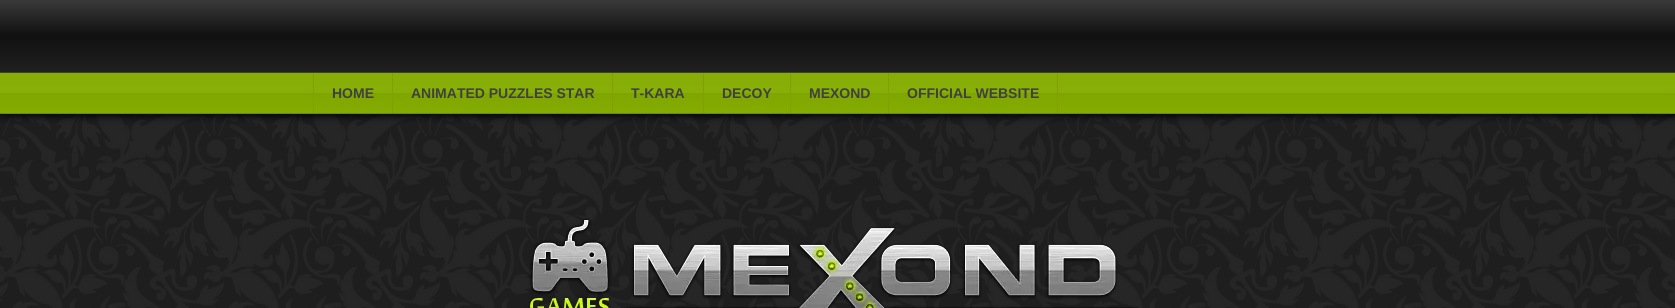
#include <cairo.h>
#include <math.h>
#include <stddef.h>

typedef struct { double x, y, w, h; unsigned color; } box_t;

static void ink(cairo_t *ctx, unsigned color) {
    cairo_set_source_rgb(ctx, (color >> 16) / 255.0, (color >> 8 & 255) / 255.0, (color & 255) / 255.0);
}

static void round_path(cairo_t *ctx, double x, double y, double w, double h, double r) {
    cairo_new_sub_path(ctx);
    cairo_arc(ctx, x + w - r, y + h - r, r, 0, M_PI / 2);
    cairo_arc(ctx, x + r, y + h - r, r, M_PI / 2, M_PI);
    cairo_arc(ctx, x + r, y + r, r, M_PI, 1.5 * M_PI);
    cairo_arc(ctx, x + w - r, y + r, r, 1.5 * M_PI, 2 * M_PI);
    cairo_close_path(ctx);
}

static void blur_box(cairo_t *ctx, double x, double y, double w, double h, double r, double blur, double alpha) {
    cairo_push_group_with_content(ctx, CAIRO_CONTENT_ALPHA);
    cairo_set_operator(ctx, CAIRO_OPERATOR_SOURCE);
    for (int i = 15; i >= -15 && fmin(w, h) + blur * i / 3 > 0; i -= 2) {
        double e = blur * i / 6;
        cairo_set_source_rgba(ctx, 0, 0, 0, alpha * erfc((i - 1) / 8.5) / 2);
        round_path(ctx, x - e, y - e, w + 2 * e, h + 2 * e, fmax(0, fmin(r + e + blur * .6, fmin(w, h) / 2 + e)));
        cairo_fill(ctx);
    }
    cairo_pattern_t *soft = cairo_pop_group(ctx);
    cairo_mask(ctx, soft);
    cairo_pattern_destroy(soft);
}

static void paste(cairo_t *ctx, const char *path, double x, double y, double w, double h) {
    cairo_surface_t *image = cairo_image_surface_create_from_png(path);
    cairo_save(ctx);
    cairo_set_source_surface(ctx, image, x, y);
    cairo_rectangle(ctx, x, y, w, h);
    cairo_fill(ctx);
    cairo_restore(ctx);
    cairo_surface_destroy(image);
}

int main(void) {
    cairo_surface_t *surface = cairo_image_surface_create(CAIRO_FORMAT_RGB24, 1675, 308);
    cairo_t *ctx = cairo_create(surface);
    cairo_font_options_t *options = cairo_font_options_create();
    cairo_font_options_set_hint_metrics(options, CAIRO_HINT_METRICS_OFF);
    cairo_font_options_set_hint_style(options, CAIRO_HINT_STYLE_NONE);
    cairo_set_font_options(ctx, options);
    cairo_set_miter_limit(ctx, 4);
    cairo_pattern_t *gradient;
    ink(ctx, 0xFFFFFF);
    cairo_paint(ctx);
    paste(ctx, "media/1.png", 0, 114, 1675, 194);
    ink(ctx, 0x000000);
    blur_box(ctx, -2, 70, 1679, 46, 0, 4, 1);
    gradient = cairo_pattern_create_linear(838, 0, 838, 72);
    cairo_pattern_add_color_stop_rgba(gradient, 0, 0.227, 0.227, 0.227, 1);
    cairo_pattern_add_color_stop_rgba(gradient, 0.49, 0.063, 0.063, 0.063, 1);
    cairo_pattern_add_color_stop_rgba(gradient, 1, 0.125, 0.125, 0.125, 1);
    cairo_set_source(ctx, gradient);
    cairo_pattern_destroy(gradient);
    cairo_rectangle(ctx, 0, 0, 1675, 72);
    cairo_fill(ctx);
    gradient = cairo_pattern_create_linear(838, 73, 838, 113);
    cairo_pattern_add_color_stop_rgba(gradient, 0, 0.529, 0.682, 0.02, 1);
    cairo_pattern_add_color_stop_rgba(gradient, 0.5, 0.533, 0.686, 0.031, 1);
    cairo_pattern_add_color_stop_rgba(gradient, 0.51, 0.498, 0.651, 0, 1);
    cairo_pattern_add_color_stop_rgba(gradient, 1, 0.518, 0.675, 0, 1);
    cairo_set_source(ctx, gradient);
    cairo_pattern_destroy(gradient);
    cairo_rectangle(ctx, 0, 73, 1675, 40);
    cairo_fill(ctx);
    {
        static const box_t items[] = {
            {0, 72, 1675, 1, 0x394528},
            {0, 113, 1675, 1, 0x678925},
            {313, 73, 1, 40, 0x82A006},
            {392, 73, 1, 40, 0x82A006},
        };
        for (size_t i = 0; i < sizeof items / sizeof *items; i++) {
            ink(ctx, items[i].color);
            cairo_rectangle(ctx, items[i].x, items[i].y, items[i].w, items[i].h);
            cairo_fill(ctx);
        }
    }
    cairo_select_font_face(ctx, "Liberation Sans", CAIRO_FONT_SLANT_NORMAL, CAIRO_FONT_WEIGHT_BOLD);
    cairo_set_font_size(ctx, 14);
    ink(ctx, 0x404040);
    cairo_move_to(ctx, 332, 98);
    cairo_show_text(ctx, "HOME");
    ink(ctx, 0x82A006);
    cairo_rectangle(ctx, 612, 73, 1, 40);
    cairo_fill(ctx);
    ink(ctx, 0x404040);
    cairo_move_to(ctx, 411, 98);
    cairo_show_text(ctx, "ANIMATED PUZZLES STAR");
    ink(ctx, 0x82A006);
    cairo_rectangle(ctx, 703, 73, 1, 40);
    cairo_fill(ctx);
    ink(ctx, 0x404040);
    cairo_move_to(ctx, 631, 98);
    cairo_show_text(ctx, "T-KARA");
    ink(ctx, 0x82A006);
    cairo_rectangle(ctx, 790, 73, 1, 40);
    cairo_fill(ctx);
    ink(ctx, 0x404040);
    cairo_move_to(ctx, 722, 98);
    cairo_show_text(ctx, "DECOY");
    ink(ctx, 0x82A006);
    cairo_rectangle(ctx, 888, 73, 1, 40);
    cairo_fill(ctx);
    ink(ctx, 0x404040);
    cairo_move_to(ctx, 809, 98);
    cairo_show_text(ctx, "MEXOND");
    ink(ctx, 0x82A006);
    cairo_rectangle(ctx, 1057, 73, 1, 40);
    cairo_fill(ctx);
    ink(ctx, 0x404040);
    cairo_move_to(ctx, 907, 98);
    cairo_show_text(ctx, "OFFICIAL WEBSITE");
    paste(ctx, "media/2.png", 528, 218, 611, 90);
    cairo_surface_write_to_png(surface, "image.png");
    cairo_font_options_destroy(options);
    cairo_destroy(ctx);
    cairo_surface_destroy(surface);
    return 0;
}
